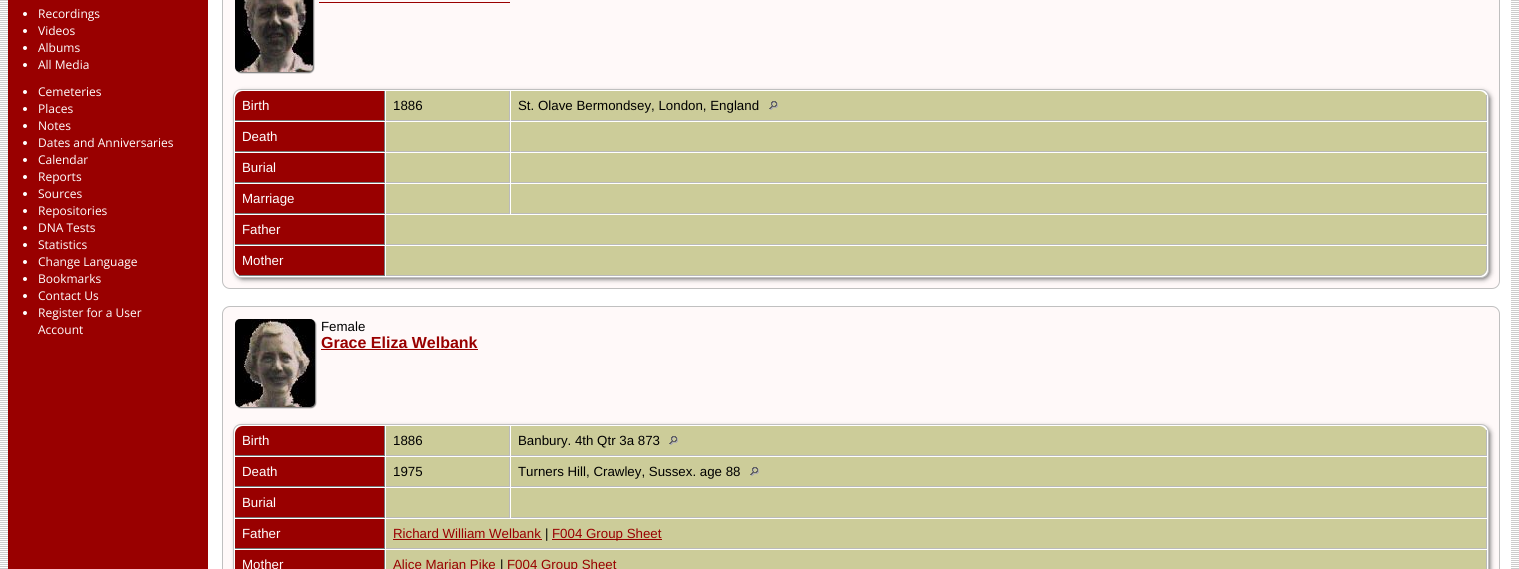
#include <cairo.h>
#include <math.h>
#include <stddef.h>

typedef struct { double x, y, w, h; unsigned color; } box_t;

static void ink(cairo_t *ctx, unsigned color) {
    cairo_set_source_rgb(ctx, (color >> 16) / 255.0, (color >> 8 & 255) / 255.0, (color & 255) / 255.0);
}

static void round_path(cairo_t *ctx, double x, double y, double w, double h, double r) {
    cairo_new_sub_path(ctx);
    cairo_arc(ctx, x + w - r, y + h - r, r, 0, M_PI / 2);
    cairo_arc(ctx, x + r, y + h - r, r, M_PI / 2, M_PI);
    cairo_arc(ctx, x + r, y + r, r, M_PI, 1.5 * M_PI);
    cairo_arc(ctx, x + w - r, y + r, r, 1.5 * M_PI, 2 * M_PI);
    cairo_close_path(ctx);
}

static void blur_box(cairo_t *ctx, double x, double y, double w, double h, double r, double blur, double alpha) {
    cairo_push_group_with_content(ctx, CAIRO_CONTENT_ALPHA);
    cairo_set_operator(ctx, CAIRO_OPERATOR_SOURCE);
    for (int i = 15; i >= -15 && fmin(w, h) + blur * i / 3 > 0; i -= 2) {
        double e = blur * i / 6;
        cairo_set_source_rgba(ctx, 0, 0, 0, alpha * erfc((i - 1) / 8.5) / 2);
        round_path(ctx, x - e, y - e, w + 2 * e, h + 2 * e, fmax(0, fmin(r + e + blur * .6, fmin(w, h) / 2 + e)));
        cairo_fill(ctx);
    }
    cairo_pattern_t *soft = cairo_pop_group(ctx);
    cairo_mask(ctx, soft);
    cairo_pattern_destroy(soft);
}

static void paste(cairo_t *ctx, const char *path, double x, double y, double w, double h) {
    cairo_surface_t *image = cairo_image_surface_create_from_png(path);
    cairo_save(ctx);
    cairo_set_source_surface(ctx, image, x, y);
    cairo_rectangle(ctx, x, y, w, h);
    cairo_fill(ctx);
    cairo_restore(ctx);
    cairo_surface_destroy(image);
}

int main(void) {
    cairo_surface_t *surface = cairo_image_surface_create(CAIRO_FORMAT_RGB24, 1519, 569);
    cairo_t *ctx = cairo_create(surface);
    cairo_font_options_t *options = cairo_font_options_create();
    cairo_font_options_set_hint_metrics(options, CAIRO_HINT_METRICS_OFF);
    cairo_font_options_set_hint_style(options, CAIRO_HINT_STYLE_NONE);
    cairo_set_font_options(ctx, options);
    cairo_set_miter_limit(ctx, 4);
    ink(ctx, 0xFFFFFF);
    cairo_paint(ctx);
    paste(ctx, "media/1.png", 0, 0, 1519, 569);
    ink(ctx, 0xFFFFFF);
    cairo_rectangle(ctx, 208, 0, 1303, 569);
    cairo_fill(ctx);
    ink(ctx, 0x990000);
    cairo_rectangle(ctx, 8, 0, 200, 569);
    cairo_fill(ctx);
    ink(ctx, 0xFFFFFF);
    cairo_arc(ctx, 25, 14, 2, 0, 2 * M_PI);
    cairo_fill(ctx);
    cairo_select_font_face(ctx, "Open Sans", CAIRO_FONT_SLANT_NORMAL, CAIRO_FONT_WEIGHT_NORMAL);
    cairo_set_font_size(ctx, 12);
    cairo_move_to(ctx, 38, 18);
    cairo_show_text(ctx, "Recordings");
    cairo_new_path(ctx);
    cairo_arc(ctx, 25, 31, 2, 0, 2 * M_PI);
    cairo_fill(ctx);
    cairo_move_to(ctx, 38, 35);
    cairo_show_text(ctx, "Videos");
    cairo_new_path(ctx);
    cairo_arc(ctx, 25, 48, 2, 0, 2 * M_PI);
    cairo_fill(ctx);
    cairo_move_to(ctx, 38, 52);
    cairo_show_text(ctx, "Albums");
    cairo_new_path(ctx);
    cairo_arc(ctx, 25, 65, 2, 0, 2 * M_PI);
    cairo_fill(ctx);
    cairo_move_to(ctx, 38, 69);
    cairo_show_text(ctx, "All Media");
    cairo_new_path(ctx);
    cairo_arc(ctx, 25, 92, 2, 0, 2 * M_PI);
    cairo_fill(ctx);
    cairo_move_to(ctx, 38, 96);
    cairo_show_text(ctx, "Cemeteries");
    cairo_new_path(ctx);
    cairo_arc(ctx, 25, 109, 2, 0, 2 * M_PI);
    cairo_fill(ctx);
    cairo_move_to(ctx, 38, 113);
    cairo_show_text(ctx, "Places");
    cairo_new_path(ctx);
    cairo_arc(ctx, 25, 126, 2, 0, 2 * M_PI);
    cairo_fill(ctx);
    cairo_move_to(ctx, 38, 130);
    cairo_show_text(ctx, "Notes");
    cairo_new_path(ctx);
    cairo_arc(ctx, 25, 143, 2, 0, 2 * M_PI);
    cairo_fill(ctx);
    cairo_move_to(ctx, 38, 147);
    cairo_show_text(ctx, "Dates and Anniversaries");
    cairo_new_path(ctx);
    cairo_arc(ctx, 25, 160, 2, 0, 2 * M_PI);
    cairo_fill(ctx);
    cairo_move_to(ctx, 38, 164);
    cairo_show_text(ctx, "Calendar");
    cairo_new_path(ctx);
    cairo_arc(ctx, 25, 177, 2, 0, 2 * M_PI);
    cairo_fill(ctx);
    cairo_move_to(ctx, 38, 181);
    cairo_show_text(ctx, "Reports");
    cairo_new_path(ctx);
    cairo_arc(ctx, 25, 194, 2, 0, 2 * M_PI);
    cairo_fill(ctx);
    cairo_move_to(ctx, 38, 198);
    cairo_show_text(ctx, "Sources");
    cairo_new_path(ctx);
    cairo_arc(ctx, 25, 211, 2, 0, 2 * M_PI);
    cairo_fill(ctx);
    cairo_move_to(ctx, 38, 215);
    cairo_show_text(ctx, "Repositories");
    cairo_new_path(ctx);
    cairo_arc(ctx, 25, 228, 2, 0, 2 * M_PI);
    cairo_fill(ctx);
    cairo_move_to(ctx, 38, 232);
    cairo_show_text(ctx, "DNA Tests");
    cairo_new_path(ctx);
    cairo_arc(ctx, 25, 245, 2, 0, 2 * M_PI);
    cairo_fill(ctx);
    cairo_move_to(ctx, 38, 249);
    cairo_show_text(ctx, "Statistics");
    cairo_new_path(ctx);
    cairo_arc(ctx, 25, 262, 2, 0, 2 * M_PI);
    cairo_fill(ctx);
    cairo_move_to(ctx, 38, 266);
    cairo_show_text(ctx, "Change Language");
    cairo_new_path(ctx);
    cairo_arc(ctx, 25, 279, 2, 0, 2 * M_PI);
    cairo_fill(ctx);
    cairo_move_to(ctx, 38, 283);
    cairo_show_text(ctx, "Bookmarks");
    cairo_new_path(ctx);
    cairo_arc(ctx, 25, 296, 2, 0, 2 * M_PI);
    cairo_fill(ctx);
    cairo_move_to(ctx, 38, 300);
    cairo_show_text(ctx, "Contact Us");
    cairo_new_path(ctx);
    cairo_arc(ctx, 25, 313, 2, 0, 2 * M_PI);
    cairo_fill(ctx);
    cairo_move_to(ctx, 38, 317);
    cairo_show_text(ctx, "Register for a User");
    cairo_move_to(ctx, 38, 334);
    cairo_show_text(ctx, "Account");
    ink(ctx, 0xFFF9F9);
    round_path(ctx, 222.5, -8.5, 1277, 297, 7.5);
    cairo_fill_preserve(ctx);
    ink(ctx, 0xC0C0C0);
    cairo_set_line_width(ctx, 1);
    cairo_stroke(ctx);
    ink(ctx, 0x777777);
    blur_box(ctx, 236, -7, 78, 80, 5, 0.5, 1);
    paste(ctx, "media/2.png", 235, 0, 78, 72);
    ink(ctx, 0x990000);
    cairo_rectangle(ctx, 319, 2, 191, 1);
    cairo_fill(ctx);
    ink(ctx, 0x666666);
    blur_box(ctx, 236, 92, 1254, 187, 7, 2.5, 1);
    ink(ctx, 0xFFFFFF);
    round_path(ctx, 233.5, 89.5, 1255, 188, 7.5);
    cairo_fill_preserve(ctx);
    ink(ctx, 0xC0C0C0);
    cairo_stroke(ctx);
    ink(ctx, 0x990000);
    cairo_new_path(ctx);
    cairo_move_to(ctx, 243, 91);
    cairo_line_to(ctx, 385, 91);
    cairo_line_to(ctx, 385, 121);
    cairo_line_to(ctx, 235, 121);
    cairo_line_to(ctx, 235, 99);
    cairo_curve_to(ctx, 235, 94.5, 238.5, 91, 243, 91);
    cairo_close_path(ctx);
    cairo_fill(ctx);
    ink(ctx, 0x777777);
    cairo_rectangle(ctx, 384, 91, 1, 30);
    cairo_fill(ctx);
    cairo_rectangle(ctx, 235, 120, 150, 1);
    cairo_fill(ctx);
    cairo_select_font_face(ctx, "Liberation Sans", CAIRO_FONT_SLANT_NORMAL, CAIRO_FONT_WEIGHT_NORMAL);
    cairo_set_font_size(ctx, 13.3);
    ink(ctx, 0xFFFFFF);
    cairo_move_to(ctx, 242, 110);
    cairo_show_text(ctx, "Birth");
    {
        static const box_t items[] = {
            {386, 91, 123, 29, 0xCCCC99},
            {509, 91, 1, 30, 0xBBBBBB},
            {386, 120, 124, 1, 0xBBBBBB},
        };
        for (size_t i = 0; i < sizeof items / sizeof *items; i++) {
            ink(ctx, items[i].color);
            cairo_rectangle(ctx, items[i].x, items[i].y, items[i].w, items[i].h);
            cairo_fill(ctx);
        }
    }
    ink(ctx, 0x000000);
    cairo_move_to(ctx, 393, 110);
    cairo_show_text(ctx, "1886");
    ink(ctx, 0xCCCC99);
    cairo_new_path(ctx);
    cairo_move_to(ctx, 511, 91);
    cairo_line_to(ctx, 1479, 91);
    cairo_curve_to(ctx, 1483.5, 91, 1487, 94.5, 1487, 99);
    cairo_line_to(ctx, 1487, 121);
    cairo_line_to(ctx, 511, 121);
    cairo_close_path(ctx);
    cairo_fill(ctx);
    ink(ctx, 0xBBBBBB);
    cairo_rectangle(ctx, 1486, 95, 1, 26);
    cairo_fill(ctx);
    cairo_rectangle(ctx, 511, 120, 976, 1);
    cairo_fill(ctx);
    ink(ctx, 0x000000);
    cairo_move_to(ctx, 518, 110);
    cairo_show_text(ctx, "St. Olave Bermondsey, London, England");
    paste(ctx, "media/3.png", 769, 101, 9, 9);
    {
        static const box_t items[] = {
            {235, 122, 149, 29, 0x990000},
            {384, 122, 1, 30, 0x777777},
            {235, 151, 150, 1, 0x777777},
        };
        for (size_t i = 0; i < sizeof items / sizeof *items; i++) {
            ink(ctx, items[i].color);
            cairo_rectangle(ctx, items[i].x, items[i].y, items[i].w, items[i].h);
            cairo_fill(ctx);
        }
    }
    ink(ctx, 0xFFFFFF);
    cairo_move_to(ctx, 242, 141);
    cairo_show_text(ctx, "Death");
    {
        static const box_t items[] = {
            {386, 122, 123, 29, 0xCCCC99},
            {509, 122, 1, 30, 0xBBBBBB},
            {386, 151, 124, 1, 0xBBBBBB},
            {511, 122, 975, 29, 0xCCCC99},
            {1486, 122, 1, 30, 0xBBBBBB},
            {511, 151, 976, 1, 0xBBBBBB},
            {235, 153, 149, 29, 0x990000},
            {384, 153, 1, 30, 0x777777},
            {235, 182, 150, 1, 0x777777},
        };
        for (size_t i = 0; i < sizeof items / sizeof *items; i++) {
            ink(ctx, items[i].color);
            cairo_rectangle(ctx, items[i].x, items[i].y, items[i].w, items[i].h);
            cairo_fill(ctx);
        }
    }
    ink(ctx, 0xFFFFFF);
    cairo_move_to(ctx, 242, 172);
    cairo_show_text(ctx, "Burial");
    {
        static const box_t items[] = {
            {386, 153, 123, 29, 0xCCCC99},
            {509, 153, 1, 30, 0xBBBBBB},
            {386, 182, 124, 1, 0xBBBBBB},
            {511, 153, 975, 29, 0xCCCC99},
            {1486, 153, 1, 30, 0xBBBBBB},
            {511, 182, 976, 1, 0xBBBBBB},
            {235, 184, 149, 29, 0x990000},
            {384, 184, 1, 30, 0x777777},
            {235, 213, 150, 1, 0x777777},
        };
        for (size_t i = 0; i < sizeof items / sizeof *items; i++) {
            ink(ctx, items[i].color);
            cairo_rectangle(ctx, items[i].x, items[i].y, items[i].w, items[i].h);
            cairo_fill(ctx);
        }
    }
    ink(ctx, 0xFFFFFF);
    cairo_move_to(ctx, 242, 203);
    cairo_show_text(ctx, "Marriage");
    {
        static const box_t items[] = {
            {386, 184, 123, 29, 0xCCCC99},
            {509, 184, 1, 30, 0xBBBBBB},
            {386, 213, 124, 1, 0xBBBBBB},
            {511, 184, 975, 29, 0xCCCC99},
            {1486, 184, 1, 30, 0xBBBBBB},
            {511, 213, 976, 1, 0xBBBBBB},
            {235, 215, 149, 29, 0x990000},
            {384, 215, 1, 30, 0x777777},
            {235, 244, 150, 1, 0x777777},
        };
        for (size_t i = 0; i < sizeof items / sizeof *items; i++) {
            ink(ctx, items[i].color);
            cairo_rectangle(ctx, items[i].x, items[i].y, items[i].w, items[i].h);
            cairo_fill(ctx);
        }
    }
    ink(ctx, 0xFFFFFF);
    cairo_move_to(ctx, 242, 234);
    cairo_show_text(ctx, "Father");
    {
        static const box_t items[] = {
            {386, 215, 1100, 29, 0xCCCC99},
            {1486, 215, 1, 30, 0xBBBBBB},
            {386, 244, 1101, 1, 0xBBBBBB},
        };
        for (size_t i = 0; i < sizeof items / sizeof *items; i++) {
            ink(ctx, items[i].color);
            cairo_rectangle(ctx, items[i].x, items[i].y, items[i].w, items[i].h);
            cairo_fill(ctx);
        }
    }
    ink(ctx, 0x990000);
    cairo_new_path(ctx);
    cairo_move_to(ctx, 235, 246);
    cairo_line_to(ctx, 385, 246);
    cairo_line_to(ctx, 385, 276);
    cairo_line_to(ctx, 243, 276);
    cairo_curve_to(ctx, 238.5, 276, 235, 272.5, 235, 268);
    cairo_close_path(ctx);
    cairo_fill(ctx);
    ink(ctx, 0x777777);
    cairo_rectangle(ctx, 384, 246, 1, 30);
    cairo_fill(ctx);
    cairo_rectangle(ctx, 239, 275, 146, 1);
    cairo_fill(ctx);
    ink(ctx, 0xFFFFFF);
    cairo_move_to(ctx, 242, 265);
    cairo_show_text(ctx, "Mother");
    ink(ctx, 0xCCCC99);
    cairo_new_path(ctx);
    cairo_move_to(ctx, 386, 246);
    cairo_line_to(ctx, 1487, 246);
    cairo_line_to(ctx, 1487, 268);
    cairo_curve_to(ctx, 1487, 272.5, 1483.5, 276, 1479, 276);
    cairo_line_to(ctx, 386, 276);
    cairo_close_path(ctx);
    cairo_fill(ctx);
    ink(ctx, 0xBBBBBB);
    cairo_set_fill_rule(ctx, CAIRO_FILL_RULE_EVEN_ODD);
    cairo_new_path(ctx);
    cairo_move_to(ctx, 386, 246);
    cairo_line_to(ctx, 1487, 246);
    cairo_line_to(ctx, 1487, 268);
    cairo_curve_to(ctx, 1487, 272, 1483, 276, 1479, 276);
    cairo_line_to(ctx, 386, 276);
    cairo_close_path(ctx);
    cairo_move_to(ctx, 386, 246);
    cairo_line_to(ctx, 1486, 246);
    cairo_line_to(ctx, 1486, 268);
    cairo_curve_to(ctx, 1486, 272, 1483, 275, 1479, 275);
    cairo_line_to(ctx, 386, 275);
    cairo_close_path(ctx);
    cairo_fill(ctx);
    ink(ctx, 0xFFF9F9);
    round_path(ctx, 222.5, 306.5, 1277, 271, 7.5);
    cairo_fill_preserve(ctx);
    ink(ctx, 0xC0C0C0);
    cairo_stroke(ctx);
    ink(ctx, 0x777777);
    blur_box(ctx, 236, 320, 80, 88, 5, 0.5, 1);
    paste(ctx, "media/4.png", 235, 319, 80, 88);
    ink(ctx, 0x000000);
    cairo_move_to(ctx, 321, 331);
    cairo_show_text(ctx, "Female");
    cairo_select_font_face(ctx, "Liberation Sans", CAIRO_FONT_SLANT_NORMAL, CAIRO_FONT_WEIGHT_BOLD);
    cairo_set_font_size(ctx, 16);
    ink(ctx, 0x990000);
    cairo_move_to(ctx, 321, 348);
    cairo_show_text(ctx, "Grace Eliza Welbank");
    cairo_rectangle(ctx, 321, 349, 157, 1);
    cairo_fill(ctx);
    ink(ctx, 0x666666);
    blur_box(ctx, 236, 427, 1254, 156, 7, 2.5, 1);
    ink(ctx, 0xFFFFFF);
    round_path(ctx, 233.5, 424.5, 1255, 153, 7.5);
    cairo_fill_preserve(ctx);
    ink(ctx, 0xC0C0C0);
    cairo_stroke(ctx);
    ink(ctx, 0x990000);
    cairo_new_path(ctx);
    cairo_move_to(ctx, 243, 426);
    cairo_line_to(ctx, 385, 426);
    cairo_line_to(ctx, 385, 456);
    cairo_line_to(ctx, 235, 456);
    cairo_line_to(ctx, 235, 434);
    cairo_curve_to(ctx, 235, 429.5, 238.5, 426, 243, 426);
    cairo_close_path(ctx);
    cairo_fill(ctx);
    ink(ctx, 0x777777);
    cairo_rectangle(ctx, 384, 426, 1, 30);
    cairo_fill(ctx);
    cairo_rectangle(ctx, 235, 455, 150, 1);
    cairo_fill(ctx);
    cairo_select_font_face(ctx, "Liberation Sans", CAIRO_FONT_SLANT_NORMAL, CAIRO_FONT_WEIGHT_NORMAL);
    cairo_set_font_size(ctx, 13.3);
    ink(ctx, 0xFFFFFF);
    cairo_move_to(ctx, 242, 445);
    cairo_show_text(ctx, "Birth");
    {
        static const box_t items[] = {
            {386, 426, 123, 29, 0xCCCC99},
            {509, 426, 1, 30, 0xBBBBBB},
            {386, 455, 124, 1, 0xBBBBBB},
        };
        for (size_t i = 0; i < sizeof items / sizeof *items; i++) {
            ink(ctx, items[i].color);
            cairo_rectangle(ctx, items[i].x, items[i].y, items[i].w, items[i].h);
            cairo_fill(ctx);
        }
    }
    ink(ctx, 0x000000);
    cairo_move_to(ctx, 393, 445);
    cairo_show_text(ctx, "1886");
    ink(ctx, 0xCCCC99);
    cairo_new_path(ctx);
    cairo_move_to(ctx, 511, 426);
    cairo_line_to(ctx, 1479, 426);
    cairo_curve_to(ctx, 1483.5, 426, 1487, 429.5, 1487, 434);
    cairo_line_to(ctx, 1487, 456);
    cairo_line_to(ctx, 511, 456);
    cairo_close_path(ctx);
    cairo_fill(ctx);
    ink(ctx, 0xBBBBBB);
    cairo_rectangle(ctx, 1486, 430, 1, 26);
    cairo_fill(ctx);
    cairo_rectangle(ctx, 511, 455, 976, 1);
    cairo_fill(ctx);
    ink(ctx, 0x000000);
    cairo_move_to(ctx, 518, 445);
    cairo_show_text(ctx, "Banbury. 4th Qtr 3a 873");
    paste(ctx, "media/3.png", 669, 436, 9, 9);
    {
        static const box_t items[] = {
            {235, 457, 149, 29, 0x990000},
            {384, 457, 1, 30, 0x777777},
            {235, 486, 150, 1, 0x777777},
        };
        for (size_t i = 0; i < sizeof items / sizeof *items; i++) {
            ink(ctx, items[i].color);
            cairo_rectangle(ctx, items[i].x, items[i].y, items[i].w, items[i].h);
            cairo_fill(ctx);
        }
    }
    ink(ctx, 0xFFFFFF);
    cairo_move_to(ctx, 242, 476);
    cairo_show_text(ctx, "Death");
    {
        static const box_t items[] = {
            {386, 457, 123, 29, 0xCCCC99},
            {509, 457, 1, 30, 0xBBBBBB},
            {386, 486, 124, 1, 0xBBBBBB},
        };
        for (size_t i = 0; i < sizeof items / sizeof *items; i++) {
            ink(ctx, items[i].color);
            cairo_rectangle(ctx, items[i].x, items[i].y, items[i].w, items[i].h);
            cairo_fill(ctx);
        }
    }
    ink(ctx, 0x000000);
    cairo_move_to(ctx, 393, 476);
    cairo_show_text(ctx, "1975");
    {
        static const box_t items[] = {
            {511, 457, 975, 29, 0xCCCC99},
            {1486, 457, 1, 30, 0xBBBBBB},
            {511, 486, 976, 1, 0xBBBBBB},
        };
        for (size_t i = 0; i < sizeof items / sizeof *items; i++) {
            ink(ctx, items[i].color);
            cairo_rectangle(ctx, items[i].x, items[i].y, items[i].w, items[i].h);
            cairo_fill(ctx);
        }
    }
    ink(ctx, 0x000000);
    cairo_move_to(ctx, 518, 476);
    cairo_show_text(ctx, "Turners Hill, Crawley, Sussex. age 88");
    paste(ctx, "media/3.png", 750, 467, 9, 9);
    {
        static const box_t items[] = {
            {235, 488, 149, 29, 0x990000},
            {384, 488, 1, 30, 0x777777},
            {235, 517, 150, 1, 0x777777},
        };
        for (size_t i = 0; i < sizeof items / sizeof *items; i++) {
            ink(ctx, items[i].color);
            cairo_rectangle(ctx, items[i].x, items[i].y, items[i].w, items[i].h);
            cairo_fill(ctx);
        }
    }
    ink(ctx, 0xFFFFFF);
    cairo_move_to(ctx, 242, 507);
    cairo_show_text(ctx, "Burial");
    {
        static const box_t items[] = {
            {386, 488, 123, 29, 0xCCCC99},
            {509, 488, 1, 30, 0xBBBBBB},
            {386, 517, 124, 1, 0xBBBBBB},
            {511, 488, 975, 29, 0xCCCC99},
            {1486, 488, 1, 30, 0xBBBBBB},
            {511, 517, 976, 1, 0xBBBBBB},
            {235, 519, 149, 29, 0x990000},
            {384, 519, 1, 30, 0x777777},
            {235, 548, 150, 1, 0x777777},
        };
        for (size_t i = 0; i < sizeof items / sizeof *items; i++) {
            ink(ctx, items[i].color);
            cairo_rectangle(ctx, items[i].x, items[i].y, items[i].w, items[i].h);
            cairo_fill(ctx);
        }
    }
    ink(ctx, 0xFFFFFF);
    cairo_move_to(ctx, 242, 538);
    cairo_show_text(ctx, "Father");
    {
        static const box_t items[] = {
            {386, 519, 1100, 29, 0xCCCC99},
            {1486, 519, 1, 30, 0xBBBBBB},
            {386, 548, 1101, 1, 0xBBBBBB},
        };
        for (size_t i = 0; i < sizeof items / sizeof *items; i++) {
            ink(ctx, items[i].color);
            cairo_rectangle(ctx, items[i].x, items[i].y, items[i].w, items[i].h);
            cairo_fill(ctx);
        }
    }
    ink(ctx, 0x990000);
    cairo_move_to(ctx, 393, 538);
    cairo_show_text(ctx, "Richard William Welbank");
    cairo_rectangle(ctx, 393, 539, 149, 1);
    cairo_fill(ctx);
    ink(ctx, 0x000000);
    cairo_move_to(ctx, 545, 538);
    cairo_show_text(ctx, "|");
    ink(ctx, 0x990000);
    cairo_rectangle(ctx, 552, 539, 110, 1);
    cairo_fill(ctx);
    cairo_move_to(ctx, 552, 538);
    cairo_show_text(ctx, "F004 Group Sheet");
    cairo_rectangle(ctx, 235, 550, 149, 19);
    cairo_fill(ctx);
    ink(ctx, 0x777777);
    cairo_rectangle(ctx, 384, 550, 1, 19);
    cairo_fill(ctx);
    ink(ctx, 0xFFFFFF);
    cairo_move_to(ctx, 242, 569);
    cairo_show_text(ctx, "Mother");
    ink(ctx, 0xCCCC99);
    cairo_rectangle(ctx, 386, 550, 1100, 19);
    cairo_fill(ctx);
    ink(ctx, 0xBBBBBB);
    cairo_new_path(ctx);
    cairo_move_to(ctx, 386, 550);
    cairo_line_to(ctx, 1487, 550);
    cairo_line_to(ctx, 1487, 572);
    cairo_curve_to(ctx, 1487, 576, 1483, 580, 1479, 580);
    cairo_line_to(ctx, 386, 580);
    cairo_close_path(ctx);
    cairo_move_to(ctx, 386, 550);
    cairo_line_to(ctx, 1486, 550);
    cairo_line_to(ctx, 1486, 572);
    cairo_curve_to(ctx, 1486, 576, 1483, 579, 1479, 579);
    cairo_line_to(ctx, 386, 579);
    cairo_close_path(ctx);
    cairo_fill(ctx);
    ink(ctx, 0x990000);
    cairo_move_to(ctx, 393, 569);
    cairo_show_text(ctx, "Alice Marian Pike");
    ink(ctx, 0x000000);
    cairo_move_to(ctx, 500, 569);
    cairo_show_text(ctx, "|");
    ink(ctx, 0x990000);
    cairo_move_to(ctx, 507, 569);
    cairo_show_text(ctx, "F004 Group Sheet");
    cairo_surface_write_to_png(surface, "image.png");
    cairo_font_options_destroy(options);
    cairo_destroy(ctx);
    cairo_surface_destroy(surface);
    return 0;
}
